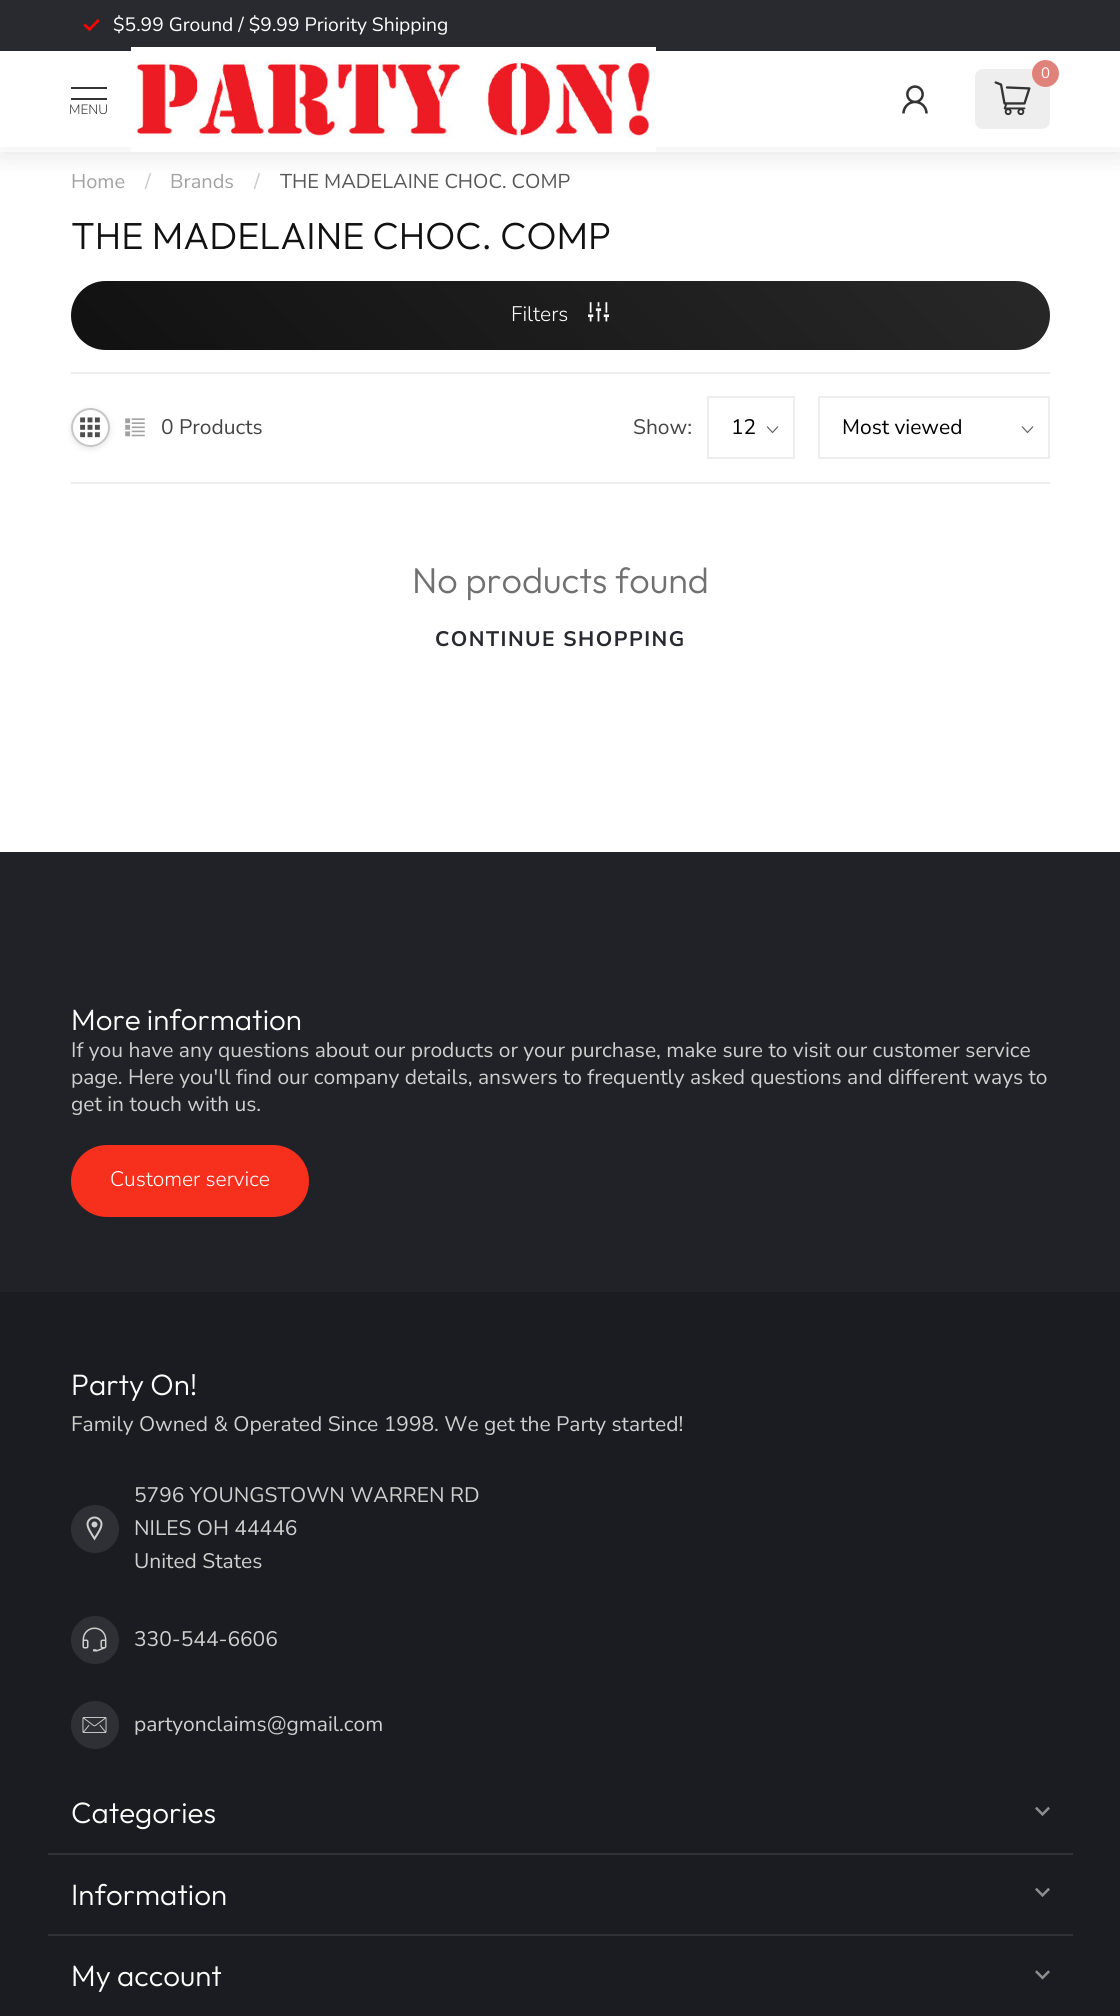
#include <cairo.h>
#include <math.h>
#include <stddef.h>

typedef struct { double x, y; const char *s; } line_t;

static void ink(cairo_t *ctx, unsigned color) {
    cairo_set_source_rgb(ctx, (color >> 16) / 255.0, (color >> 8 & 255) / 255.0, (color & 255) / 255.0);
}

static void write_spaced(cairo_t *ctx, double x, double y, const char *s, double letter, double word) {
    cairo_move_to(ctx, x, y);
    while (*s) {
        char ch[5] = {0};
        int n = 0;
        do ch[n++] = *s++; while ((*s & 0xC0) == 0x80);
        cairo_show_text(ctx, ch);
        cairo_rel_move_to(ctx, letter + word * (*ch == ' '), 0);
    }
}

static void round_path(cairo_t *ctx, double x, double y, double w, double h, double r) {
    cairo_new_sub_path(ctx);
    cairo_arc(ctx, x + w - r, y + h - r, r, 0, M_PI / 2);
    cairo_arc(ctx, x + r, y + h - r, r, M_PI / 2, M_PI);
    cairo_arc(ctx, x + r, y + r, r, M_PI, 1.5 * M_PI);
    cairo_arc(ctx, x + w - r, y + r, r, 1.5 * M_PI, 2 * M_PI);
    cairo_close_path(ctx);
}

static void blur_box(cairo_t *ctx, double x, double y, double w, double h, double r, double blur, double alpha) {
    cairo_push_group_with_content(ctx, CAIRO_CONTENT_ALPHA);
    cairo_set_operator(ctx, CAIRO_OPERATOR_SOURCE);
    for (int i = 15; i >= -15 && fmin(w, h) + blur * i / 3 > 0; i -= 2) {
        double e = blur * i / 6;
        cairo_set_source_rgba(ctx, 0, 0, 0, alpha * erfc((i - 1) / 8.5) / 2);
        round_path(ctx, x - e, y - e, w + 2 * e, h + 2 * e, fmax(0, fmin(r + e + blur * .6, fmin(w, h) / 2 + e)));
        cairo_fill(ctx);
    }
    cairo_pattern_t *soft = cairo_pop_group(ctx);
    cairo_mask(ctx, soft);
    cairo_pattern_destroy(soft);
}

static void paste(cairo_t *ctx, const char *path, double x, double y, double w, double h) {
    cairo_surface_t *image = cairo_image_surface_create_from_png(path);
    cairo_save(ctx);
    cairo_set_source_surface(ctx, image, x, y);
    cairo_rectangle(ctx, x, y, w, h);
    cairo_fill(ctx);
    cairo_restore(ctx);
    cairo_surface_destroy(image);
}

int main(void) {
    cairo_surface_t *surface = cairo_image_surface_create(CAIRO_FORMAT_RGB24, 1120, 2016);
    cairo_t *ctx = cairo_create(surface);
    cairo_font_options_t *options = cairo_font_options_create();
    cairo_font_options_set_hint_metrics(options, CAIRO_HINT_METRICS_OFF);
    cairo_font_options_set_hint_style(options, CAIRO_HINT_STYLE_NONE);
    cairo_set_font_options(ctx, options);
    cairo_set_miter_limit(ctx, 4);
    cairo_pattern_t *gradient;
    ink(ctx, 0xFFFFFF);
    cairo_paint(ctx);
    ink(ctx, 0x000000);
    blur_box(ctx, 0, 80, 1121, 72, 0, 16.5, 0.08);
    ink(ctx, 0xFFFFFF);
    cairo_rectangle(ctx, 0, 147, 1120, 5);
    cairo_fill(ctx);
    ink(ctx, 0x000000);
    blur_box(ctx, 0, 0, 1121, 147, 0, 15, 0.07);
    ink(ctx, 0xFFFFFF);
    cairo_rectangle(ctx, 0, 51, 1120, 96);
    cairo_fill(ctx);
    ink(ctx, 0x282A30);
    cairo_rectangle(ctx, 0, 0, 1120, 51);
    cairo_fill(ctx);
    paste(ctx, "media/1.png", 83, 19, 17, 13);
    cairo_select_font_face(ctx, "Nunito Sans", CAIRO_FONT_SLANT_NORMAL, CAIRO_FONT_WEIGHT_NORMAL);
    cairo_set_font_size(ctx, 19.3);
    ink(ctx, 0xFFFFFF);
    cairo_move_to(ctx, 113, 31);
    cairo_show_text(ctx, "$5.99 Ground / $9.99 Priority Shipping");
    paste(ctx, "media/2.png", 131, 47, 525, 105);
    ink(ctx, 0xEEEEEE);
    round_path(ctx, 975, 69, 75, 60, 8);
    cairo_fill(ctx);
    ink(ctx, 0xDF8279);
    cairo_arc(ctx, 1045.5, 73.5, 13.5, 0, 2 * M_PI);
    cairo_fill(ctx);
    cairo_set_font_size(ctx, 15);
    ink(ctx, 0xFFFFFF);
    cairo_move_to(ctx, 1041, 78);
    cairo_show_text(ctx, "0");
    paste(ctx, "media/3.png", 994, 81, 37, 35);
    paste(ctx, "media/4.png", 902, 85, 26, 29);
    ink(ctx, 0x333333);
    cairo_rectangle(ctx, 71, 87, 36, 2);
    cairo_fill(ctx);
    cairo_rectangle(ctx, 71, 98, 36, 2);
    cairo_fill(ctx);
    cairo_select_font_face(ctx, "Nunito Sans Light", CAIRO_FONT_SLANT_NORMAL, CAIRO_FONT_WEIGHT_NORMAL);
    cairo_set_font_size(ctx, 13.5);
    cairo_move_to(ctx, 69, 114);
    cairo_show_text(ctx, "MENU");
    cairo_select_font_face(ctx, "Nunito Sans", CAIRO_FONT_SLANT_NORMAL, CAIRO_FONT_WEIGHT_NORMAL);
    cairo_set_font_size(ctx, 20);
    ink(ctx, 0xA2A2A2);
    cairo_move_to(ctx, 71, 188);
    cairo_show_text(ctx, "Home");
    ink(ctx, 0xC7C7C7);
    cairo_move_to(ctx, 145, 188);
    cairo_show_text(ctx, "/");
    ink(ctx, 0xA2A2A2);
    cairo_move_to(ctx, 170, 188);
    cairo_show_text(ctx, "Brands");
    ink(ctx, 0xC7C7C7);
    cairo_move_to(ctx, 254, 188);
    cairo_show_text(ctx, "/");
    ink(ctx, 0x575757);
    cairo_move_to(ctx, 280, 188);
    cairo_show_text(ctx, "THE MADELAINE CHOC. COMP");
    cairo_select_font_face(ctx, "Outfit Light", CAIRO_FONT_SLANT_NORMAL, CAIRO_FONT_WEIGHT_NORMAL);
    cairo_set_font_size(ctx, 37.75);
    ink(ctx, 0x111111);
    cairo_move_to(ctx, 71, 249);
    cairo_show_text(ctx, "THE MADELAINE CHOC. COMP");
    gradient = cairo_pattern_create_linear(298, 577, 822, 53);
    cairo_pattern_add_color_stop_rgba(gradient, 0, 0.067, 0.067, 0.067, 1);
    cairo_pattern_add_color_stop_rgba(gradient, 1, 0.157, 0.157, 0.157, 1);
    cairo_set_source(ctx, gradient);
    cairo_pattern_destroy(gradient);
    round_path(ctx, 71, 281, 979, 69, 34.5);
    cairo_fill(ctx);
    cairo_select_font_face(ctx, "Nunito Sans Light", CAIRO_FONT_SLANT_NORMAL, CAIRO_FONT_WEIGHT_NORMAL);
    cairo_set_font_size(ctx, 21);
    ink(ctx, 0xFFFFFF);
    cairo_move_to(ctx, 511, 321);
    cairo_show_text(ctx, "Filters");
    paste(ctx, "media/5.png", 588, 302, 21, 20);
    ink(ctx, 0xEEEEEE);
    cairo_rectangle(ctx, 71, 372, 979, 2);
    cairo_fill(ctx);
    cairo_rectangle(ctx, 71, 482, 979, 2);
    cairo_fill(ctx);
    cairo_save(ctx);
    cairo_set_fill_rule(ctx, CAIRO_FILL_RULE_EVEN_ODD);
    cairo_new_path(ctx);
    cairo_move_to(ctx, 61, 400);
    cairo_line_to(ctx, 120, 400);
    cairo_line_to(ctx, 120, 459);
    cairo_line_to(ctx, 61, 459);
    cairo_close_path(ctx);
    cairo_move_to(ctx, 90.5, 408);
    cairo_curve_to(ctx, 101.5, 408, 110, 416.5, 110, 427.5);
    cairo_curve_to(ctx, 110, 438.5, 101.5, 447, 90.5, 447);
    cairo_curve_to(ctx, 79.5, 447, 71, 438.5, 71, 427.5);
    cairo_curve_to(ctx, 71, 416.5, 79.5, 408, 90.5, 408);
    cairo_close_path(ctx);
    cairo_clip(ctx);
    ink(ctx, 0x000000);
    blur_box(ctx, 71, 410, 39, 39, 19.5, 3, 0.1);
    cairo_restore(ctx);
    cairo_arc(ctx, 90.5, 427.5, 18.5, 0, 2 * M_PI);
    ink(ctx, 0xC6C6C6);
    cairo_stroke(ctx);
    paste(ctx, "media/6.png", 80, 417, 20, 21);
    paste(ctx, "media/7.png", 125, 418, 20, 19);
    cairo_select_font_face(ctx, "Nunito Sans", CAIRO_FONT_SLANT_NORMAL, CAIRO_FONT_WEIGHT_NORMAL);
    ink(ctx, 0x444444);
    cairo_move_to(ctx, 161, 434);
    cairo_show_text(ctx, "0 Products");
    cairo_move_to(ctx, 633, 434);
    cairo_show_text(ctx, "Show:");
    cairo_new_path(ctx);
    cairo_move_to(ctx, 778, 426.5);
    cairo_line_to(ctx, 772.5, 432.5);
    cairo_line_to(ctx, 767, 426.5);
    ink(ctx, 0x595959);
    cairo_set_line_width(ctx, 1.1);
    cairo_stroke(ctx);
    cairo_rectangle(ctx, 708, 397, 86, 61);
    ink(ctx, 0xEEEEEE);
    cairo_set_line_width(ctx, 2);
    cairo_stroke(ctx);
    ink(ctx, 0x000000);
    cairo_move_to(ctx, 731, 434);
    cairo_show_text(ctx, "12");
    cairo_new_path(ctx);
    cairo_move_to(ctx, 1033, 426.5);
    cairo_line_to(ctx, 1027.5, 432.5);
    cairo_line_to(ctx, 1022, 426.5);
    ink(ctx, 0x595959);
    cairo_set_line_width(ctx, 1.1);
    cairo_stroke(ctx);
    cairo_rectangle(ctx, 819, 397, 230, 61);
    ink(ctx, 0xEEEEEE);
    cairo_set_line_width(ctx, 2);
    cairo_stroke(ctx);
    ink(ctx, 0x000000);
    cairo_move_to(ctx, 842, 434);
    cairo_show_text(ctx, "Most viewed");
    cairo_select_font_face(ctx, "Outfit Light", CAIRO_FONT_SLANT_NORMAL, CAIRO_FONT_WEIGHT_NORMAL);
    cairo_set_font_size(ctx, 36);
    ink(ctx, 0x707070);
    cairo_move_to(ctx, 412, 593);
    cairo_show_text(ctx, "No products found");
    cairo_select_font_face(ctx, "Nunito Sans", CAIRO_FONT_SLANT_NORMAL, CAIRO_FONT_WEIGHT_BOLD);
    cairo_set_font_size(ctx, 21);
    ink(ctx, 0x282A30);
    write_spaced(ctx, 435, 646, "CONTINUE SHOPPING", 1.5, 0);
    ink(ctx, 0x1B1C21);
    cairo_rectangle(ctx, 0, 1292, 1120, 724);
    cairo_fill(ctx);
    ink(ctx, 0x212227);
    cairo_rectangle(ctx, 0, 852, 1120, 440);
    cairo_fill(ctx);
    cairo_select_font_face(ctx, "Outfit Light", CAIRO_FONT_SLANT_NORMAL, CAIRO_FONT_WEIGHT_NORMAL);
    cairo_set_font_size(ctx, 29.5);
    ink(ctx, 0xFFFFFF);
    cairo_move_to(ctx, 71, 1030);
    cairo_show_text(ctx, "More information");
    cairo_select_font_face(ctx, "Nunito Sans", CAIRO_FONT_SLANT_NORMAL, CAIRO_FONT_WEIGHT_NORMAL);
    cairo_set_font_size(ctx, 21);
    ink(ctx, 0xCFCFCF);
    {
        static const line_t items[] = {
            {71, 1057, "If you have any questions about our products or your purchase, make sure to visit our customer service"},
            {71, 1084, "page. Here you'll find our company details, answers to frequently asked questions and different ways to"},
            {71, 1111, "get in touch with us."},
        };
        for (size_t i = 0; i < sizeof items / sizeof *items; i++) {
            cairo_move_to(ctx, items[i].x, items[i].y);
            cairo_show_text(ctx, items[i].s);
        }
    }
    ink(ctx, 0xF72F1D);
    round_path(ctx, 71, 1145, 238, 72, 36);
    cairo_fill(ctx);
    cairo_select_font_face(ctx, "Nunito Sans Light", CAIRO_FONT_SLANT_NORMAL, CAIRO_FONT_WEIGHT_NORMAL);
    ink(ctx, 0xFFFFFF);
    cairo_move_to(ctx, 110, 1186);
    cairo_show_text(ctx, "Customer service");
    cairo_select_font_face(ctx, "Outfit Light", CAIRO_FONT_SLANT_NORMAL, CAIRO_FONT_WEIGHT_NORMAL);
    cairo_set_font_size(ctx, 29.5);
    cairo_move_to(ctx, 71, 1395);
    cairo_show_text(ctx, "Party On!");
    cairo_select_font_face(ctx, "Nunito Sans", CAIRO_FONT_SLANT_NORMAL, CAIRO_FONT_WEIGHT_NORMAL);
    cairo_set_font_size(ctx, 21);
    ink(ctx, 0xCFCFCF);
    cairo_move_to(ctx, 71, 1431);
    cairo_show_text(ctx, "Family Owned & Operated Since 1998. We get the Party started!");
    ink(ctx, 0x2F3035);
    cairo_new_path(ctx);
    cairo_arc(ctx, 95, 1529, 24, 0, 2 * M_PI);
    cairo_fill(ctx);
    paste(ctx, "media/8.png", 86, 1516, 17, 25);
    ink(ctx, 0xCFCFCF);
    {
        static const line_t items[] = {
            {134, 1502, "5796 YOUNGSTOWN WARREN RD"},
            {134, 1535, "NILES OH 44446"},
            {134, 1568, "United States"},
        };
        for (size_t i = 0; i < sizeof items / sizeof *items; i++) {
            cairo_move_to(ctx, items[i].x, items[i].y);
            cairo_show_text(ctx, items[i].s);
        }
    }
    ink(ctx, 0x2F3035);
    cairo_new_path(ctx);
    cairo_arc(ctx, 95, 1640, 24, 0, 2 * M_PI);
    cairo_fill(ctx);
    paste(ctx, "media/9.png", 82, 1627, 25, 25);
    ink(ctx, 0xCFCFCF);
    cairo_move_to(ctx, 134, 1646);
    cairo_show_text(ctx, "330-544-6606");
    ink(ctx, 0x2F3035);
    cairo_new_path(ctx);
    cairo_arc(ctx, 95, 1725, 24, 0, 2 * M_PI);
    cairo_fill(ctx);
    paste(ctx, "media/10.png", 82, 1717, 25, 16);
    ink(ctx, 0xCFCFCF);
    cairo_move_to(ctx, 134, 1731);
    cairo_show_text(ctx, "partyonclaims@gmail.com");
    ink(ctx, 0x313236);
    cairo_rectangle(ctx, 48, 1853, 1025, 2);
    cairo_fill(ctx);
    cairo_select_font_face(ctx, "Outfit Light", CAIRO_FONT_SLANT_NORMAL, CAIRO_FONT_WEIGHT_NORMAL);
    cairo_set_font_size(ctx, 29.5);
    ink(ctx, 0xFFFFFF);
    cairo_move_to(ctx, 71, 1823);
    cairo_show_text(ctx, "Categories");
    paste(ctx, "media/11.png", 1035, 1806, 15, 10);
    ink(ctx, 0x313236);
    cairo_rectangle(ctx, 48, 1934, 1025, 2);
    cairo_fill(ctx);
    ink(ctx, 0xFFFFFF);
    cairo_move_to(ctx, 71, 1905);
    cairo_show_text(ctx, "Information");
    paste(ctx, "media/11.png", 1035, 1887, 15, 10);
    cairo_move_to(ctx, 71, 1986);
    cairo_show_text(ctx, "My account");
    paste(ctx, "media/12.png", 1035, 1970, 15, 10);
    cairo_surface_write_to_png(surface, "image.png");
    cairo_font_options_destroy(options);
    cairo_destroy(ctx);
    cairo_surface_destroy(surface);
    return 0;
}
